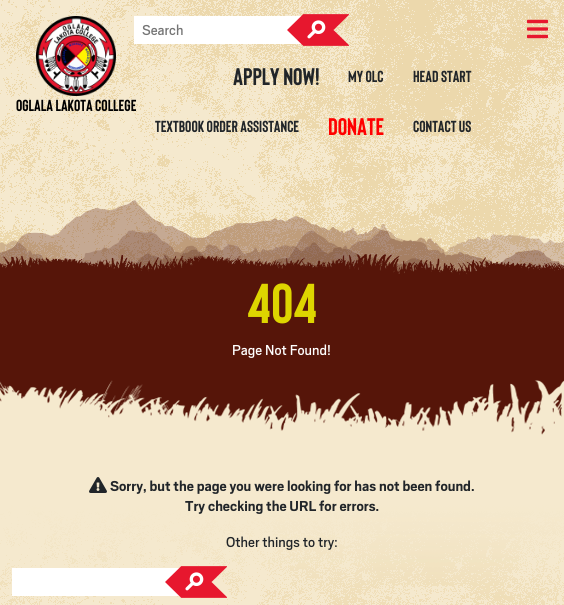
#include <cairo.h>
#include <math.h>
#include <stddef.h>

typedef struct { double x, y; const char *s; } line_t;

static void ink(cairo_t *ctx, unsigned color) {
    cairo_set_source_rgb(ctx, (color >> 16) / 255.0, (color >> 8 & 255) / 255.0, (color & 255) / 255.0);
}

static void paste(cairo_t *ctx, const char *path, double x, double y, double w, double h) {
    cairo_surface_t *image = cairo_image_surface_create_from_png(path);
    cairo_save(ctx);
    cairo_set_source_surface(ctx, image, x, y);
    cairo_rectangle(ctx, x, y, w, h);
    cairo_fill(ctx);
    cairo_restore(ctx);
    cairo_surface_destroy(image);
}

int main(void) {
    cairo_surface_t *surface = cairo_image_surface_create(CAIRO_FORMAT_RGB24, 564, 605);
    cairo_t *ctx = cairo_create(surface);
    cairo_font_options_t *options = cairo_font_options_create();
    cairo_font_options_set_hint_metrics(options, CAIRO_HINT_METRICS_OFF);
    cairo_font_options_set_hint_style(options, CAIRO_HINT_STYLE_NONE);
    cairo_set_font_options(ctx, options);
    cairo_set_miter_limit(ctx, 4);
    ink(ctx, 0xFFFFFF);
    cairo_paint(ctx);
    paste(ctx, "media/1.png", 0, 0, 564, 605);
    paste(ctx, "media/2.png", 36, 16, 80, 80);
    cairo_select_font_face(ctx, "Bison", CAIRO_FONT_SLANT_NORMAL, CAIRO_FONT_WEIGHT_BOLD);
    cairo_set_font_size(ctx, 16);
    ink(ctx, 0x000000);
    cairo_move_to(ctx, 16, 111);
    cairo_show_text(ctx, "Oglala Lakota College");
    ink(ctx, 0xFFFFFF);
    cairo_rectangle(ctx, 134, 16, 200, 28);
    cairo_fill(ctx);
    cairo_select_font_face(ctx, "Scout", CAIRO_FONT_SLANT_NORMAL, CAIRO_FONT_WEIGHT_NORMAL);
    ink(ctx, 0x757575);
    cairo_move_to(ctx, 142, 35);
    cairo_show_text(ctx, "Search");
    paste(ctx, "media/3.png", 287, 14, 62, 32);
    cairo_select_font_face(ctx, "Bison", CAIRO_FONT_SLANT_NORMAL, CAIRO_FONT_WEIGHT_BOLD);
    cairo_set_font_size(ctx, 24);
    ink(ctx, 0x212529);
    cairo_move_to(ctx, 233, 85);
    cairo_show_text(ctx, "Apply Now!");
    cairo_set_font_size(ctx, 16);
    {
        static const line_t items[] = {
            {348, 82, "My OLC"},
            {413, 82, "Head Start"},
            {155, 132, "Textbook Order Assistance"},
        };
        for (size_t i = 0; i < sizeof items / sizeof *items; i++) {
            cairo_move_to(ctx, items[i].x, items[i].y);
            cairo_show_text(ctx, items[i].s);
        }
    }
    cairo_set_font_size(ctx, 24);
    ink(ctx, 0xFF0000);
    cairo_move_to(ctx, 328, 135);
    cairo_show_text(ctx, "Donate");
    cairo_set_font_size(ctx, 16);
    ink(ctx, 0x212529);
    cairo_move_to(ctx, 413, 132);
    cairo_show_text(ctx, "Contact Us");
    paste(ctx, "media/4.png", 527, 19, 21, 20);
    ink(ctx, 0x561509);
    cairo_rectangle(ctx, 0, 276, 564, 159);
    cairo_fill(ctx);
    paste(ctx, "media/5.png", 0, 200, 564, 76);
    cairo_set_font_size(ctx, 56);
    ink(ctx, 0xDED500);
    cairo_move_to(ctx, 247, 323);
    cairo_show_text(ctx, "404");
    cairo_select_font_face(ctx, "Scout", CAIRO_FONT_SLANT_NORMAL, CAIRO_FONT_WEIGHT_NORMAL);
    cairo_set_font_size(ctx, 16);
    ink(ctx, 0xFFFFFF);
    cairo_move_to(ctx, 232, 355);
    cairo_show_text(ctx, "Page Not Found!");
    paste(ctx, "media/6.png", 0, 380, 564, 225);
    paste(ctx, "media/7.png", 89, 477, 18, 16);
    cairo_select_font_face(ctx, "Scout", CAIRO_FONT_SLANT_NORMAL, CAIRO_FONT_WEIGHT_BOLD);
    ink(ctx, 0x212529);
    cairo_move_to(ctx, 110, 491);
    cairo_show_text(ctx, "Sorry, but the page you were looking for has not been found.");
    cairo_move_to(ctx, 185, 511);
    cairo_show_text(ctx, "Try checking the URL for errors.");
    cairo_select_font_face(ctx, "Scout", CAIRO_FONT_SLANT_NORMAL, CAIRO_FONT_WEIGHT_NORMAL);
    cairo_move_to(ctx, 226, 547);
    cairo_show_text(ctx, "Other things to try:");
    ink(ctx, 0xFFFFFF);
    cairo_rectangle(ctx, 12, 568, 200, 28);
    cairo_fill(ctx);
    paste(ctx, "media/8.png", 165, 566, 62, 32);
    cairo_surface_write_to_png(surface, "image.png");
    cairo_font_options_destroy(options);
    cairo_destroy(ctx);
    cairo_surface_destroy(surface);
    return 0;
}
